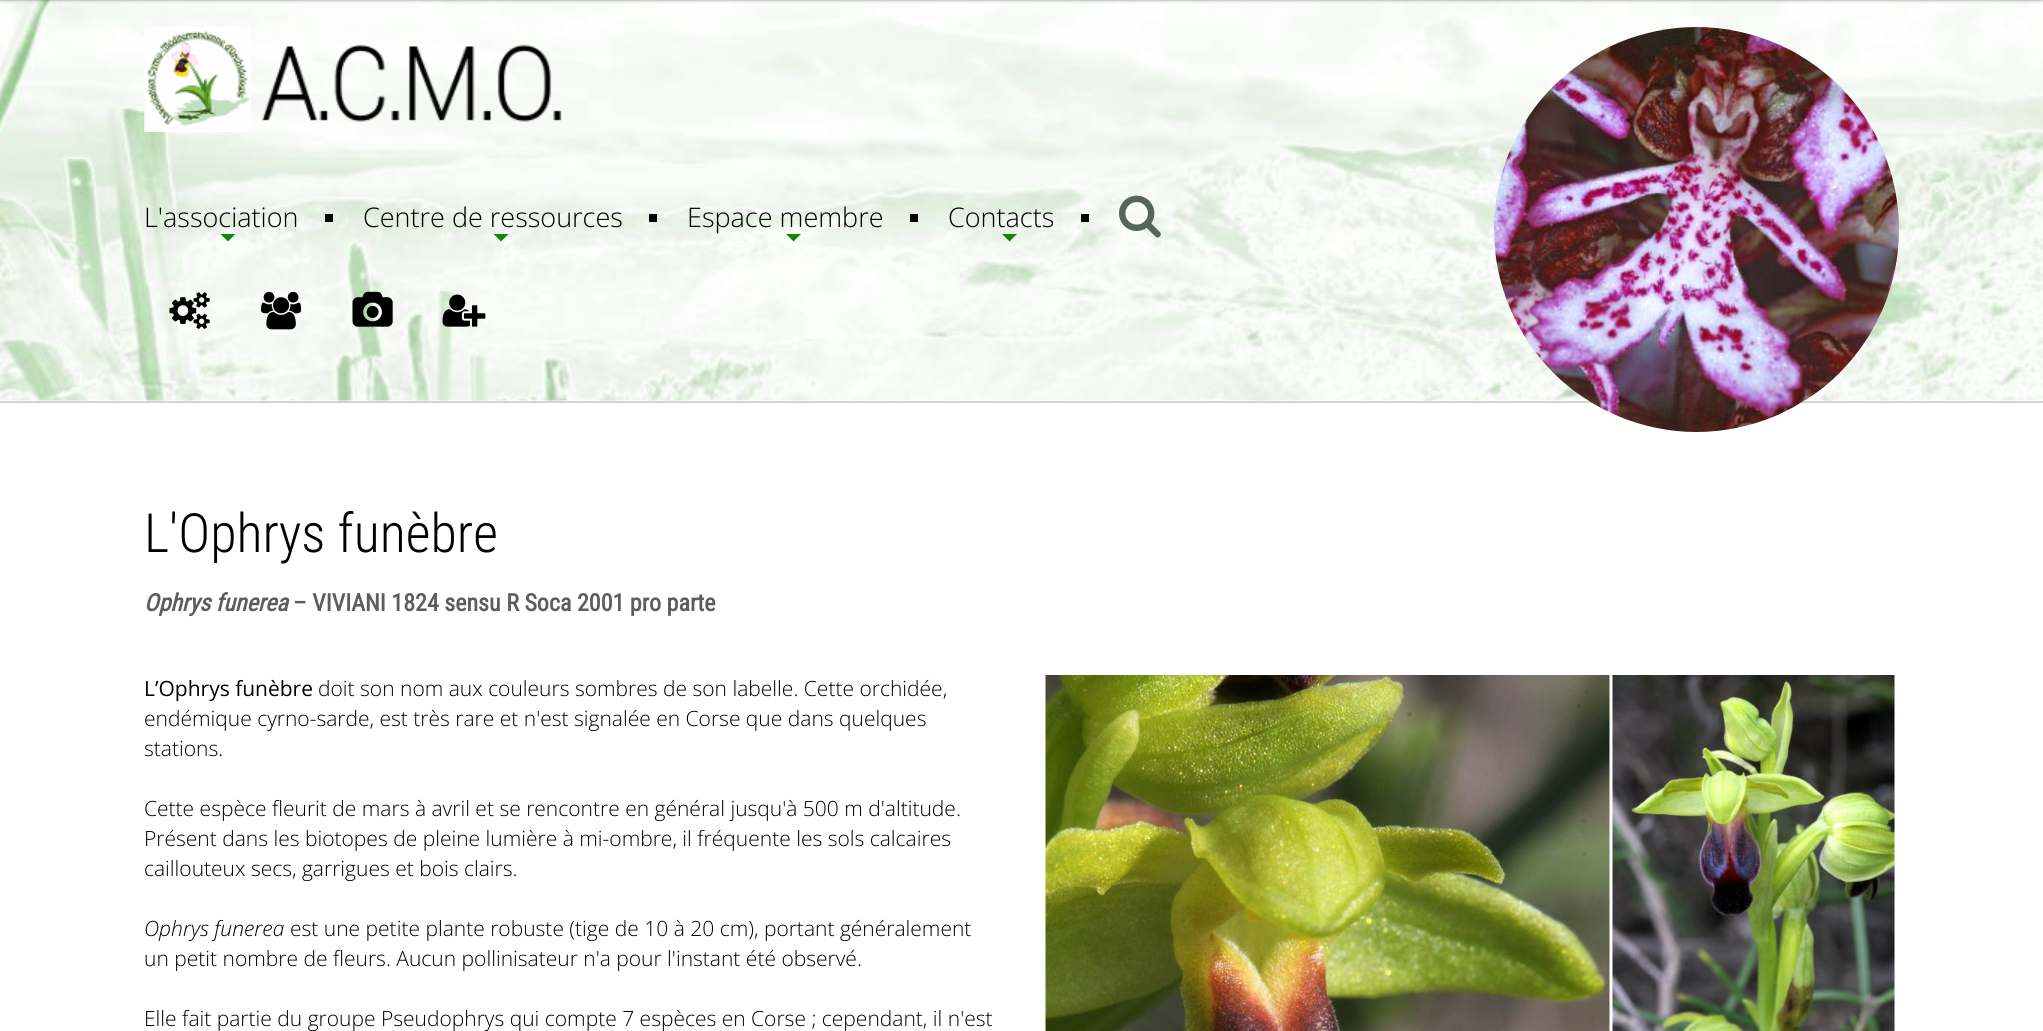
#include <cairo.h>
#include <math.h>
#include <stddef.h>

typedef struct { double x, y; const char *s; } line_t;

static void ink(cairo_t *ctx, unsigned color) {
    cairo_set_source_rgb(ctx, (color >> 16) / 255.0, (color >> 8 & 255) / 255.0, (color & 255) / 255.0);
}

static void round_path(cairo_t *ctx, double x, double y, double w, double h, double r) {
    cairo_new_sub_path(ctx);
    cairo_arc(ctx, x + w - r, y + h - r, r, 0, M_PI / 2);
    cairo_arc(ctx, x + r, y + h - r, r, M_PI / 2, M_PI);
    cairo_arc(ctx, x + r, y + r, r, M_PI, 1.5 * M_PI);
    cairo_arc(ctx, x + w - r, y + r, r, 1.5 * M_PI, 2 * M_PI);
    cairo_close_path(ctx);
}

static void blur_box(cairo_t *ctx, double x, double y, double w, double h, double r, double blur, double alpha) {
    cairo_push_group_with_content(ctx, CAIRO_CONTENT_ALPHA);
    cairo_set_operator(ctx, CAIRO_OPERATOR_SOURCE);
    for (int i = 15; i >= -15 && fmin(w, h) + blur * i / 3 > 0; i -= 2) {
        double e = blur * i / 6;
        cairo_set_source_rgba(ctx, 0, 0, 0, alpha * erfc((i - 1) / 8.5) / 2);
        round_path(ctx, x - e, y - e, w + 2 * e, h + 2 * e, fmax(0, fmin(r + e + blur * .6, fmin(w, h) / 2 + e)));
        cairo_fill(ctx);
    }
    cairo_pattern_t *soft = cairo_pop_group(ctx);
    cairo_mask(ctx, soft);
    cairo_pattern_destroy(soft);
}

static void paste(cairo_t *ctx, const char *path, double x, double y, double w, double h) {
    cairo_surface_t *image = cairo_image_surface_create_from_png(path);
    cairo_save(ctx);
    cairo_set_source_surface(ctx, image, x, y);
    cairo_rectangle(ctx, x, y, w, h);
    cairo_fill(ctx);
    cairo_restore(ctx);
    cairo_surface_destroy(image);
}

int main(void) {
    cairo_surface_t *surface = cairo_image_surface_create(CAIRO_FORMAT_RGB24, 2043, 1031);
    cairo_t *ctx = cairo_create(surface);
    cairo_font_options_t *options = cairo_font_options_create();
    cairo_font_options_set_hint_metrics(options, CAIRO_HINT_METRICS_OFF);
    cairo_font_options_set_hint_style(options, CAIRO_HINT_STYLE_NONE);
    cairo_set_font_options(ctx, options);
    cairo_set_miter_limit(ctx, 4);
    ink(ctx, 0xFFFFFF);
    cairo_paint(ctx);
    paste(ctx, "media/1.png", 0, 0, 2043, 401);
    ink(ctx, 0x333333);
    blur_box(ctx, 0, -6, 2043, 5, 0, 2, 1);
    paste(ctx, "media/2.png", 144, 27, 418, 105);
    ink(ctx, 0xD4D4D4);
    cairo_rectangle(ctx, 0, 401, 2043, 2);
    cairo_fill(ctx);
    paste(ctx, "media/3.png", 1494, 27, 405, 405);
    cairo_select_font_face(ctx, "Open Sans Light", CAIRO_FONT_SLANT_NORMAL, CAIRO_FONT_WEIGHT_NORMAL);
    cairo_set_font_size(ctx, 27);
    ink(ctx, 0x000000);
    cairo_move_to(ctx, 144, 227);
    cairo_show_text(ctx, "L'association");
    ink(ctx, 0x108908);
    cairo_new_path(ctx);
    cairo_move_to(ctx, 220.5, 234);
    cairo_line_to(ctx, 235.5, 234);
    cairo_line_to(ctx, 228, 241.5);
    cairo_close_path(ctx);
    cairo_fill(ctx);
    ink(ctx, 0x000000);
    cairo_rectangle(ctx, 325, 214, 8, 8);
    cairo_fill(ctx);
    cairo_move_to(ctx, 363, 227);
    cairo_show_text(ctx, "Centre de ressources");
    ink(ctx, 0x108908);
    cairo_new_path(ctx);
    cairo_move_to(ctx, 493.5, 234);
    cairo_line_to(ctx, 508.5, 234);
    cairo_line_to(ctx, 501, 241.5);
    cairo_close_path(ctx);
    cairo_fill(ctx);
    ink(ctx, 0x000000);
    cairo_rectangle(ctx, 649, 214, 8, 8);
    cairo_fill(ctx);
    cairo_move_to(ctx, 687, 227);
    cairo_show_text(ctx, "Espace membre");
    ink(ctx, 0x108908);
    cairo_new_path(ctx);
    cairo_move_to(ctx, 786, 234);
    cairo_line_to(ctx, 801, 234);
    cairo_line_to(ctx, 793.5, 241.5);
    cairo_close_path(ctx);
    cairo_fill(ctx);
    ink(ctx, 0x000000);
    cairo_rectangle(ctx, 910, 214, 8, 8);
    cairo_fill(ctx);
    cairo_move_to(ctx, 948, 227);
    cairo_show_text(ctx, "Contacts");
    ink(ctx, 0x108908);
    cairo_new_path(ctx);
    cairo_move_to(ctx, 1002, 234);
    cairo_line_to(ctx, 1017, 234);
    cairo_line_to(ctx, 1009.5, 241.5);
    cairo_close_path(ctx);
    cairo_fill(ctx);
    ink(ctx, 0x000000);
    cairo_rectangle(ctx, 1081, 214, 8, 8);
    cairo_fill(ctx);
    paste(ctx, "media/4.png", 1119, 195, 42, 43);
    paste(ctx, "media/5.png", 169, 292, 41, 37);
    paste(ctx, "media/6.png", 261, 291, 41, 39);
    paste(ctx, "media/7.png", 352, 291, 41, 36);
    paste(ctx, "media/8.png", 442, 294, 44, 33);
    cairo_select_font_face(ctx, "Roboto Condensed Light", CAIRO_FONT_SLANT_NORMAL, CAIRO_FONT_WEIGHT_NORMAL);
    cairo_set_font_size(ctx, 54);
    cairo_move_to(ctx, 144, 552);
    cairo_show_text(ctx, "L'Ophrys funèbre");
    cairo_select_font_face(ctx, "Roboto Condensed", CAIRO_FONT_SLANT_ITALIC, CAIRO_FONT_WEIGHT_BOLD);
    cairo_set_font_size(ctx, 24);
    ink(ctx, 0x5E5D5D);
    cairo_move_to(ctx, 144, 611);
    cairo_show_text(ctx, "Ophrys funerea");
    cairo_select_font_face(ctx, "Roboto Condensed", CAIRO_FONT_SLANT_NORMAL, CAIRO_FONT_WEIGHT_BOLD);
    cairo_move_to(ctx, 293, 611);
    cairo_show_text(ctx, "– VIVIANI 1824 sensu R Soca 2001 pro parte");
    cairo_select_font_face(ctx, "Open Sans", CAIRO_FONT_SLANT_NORMAL, CAIRO_FONT_WEIGHT_NORMAL);
    cairo_set_font_size(ctx, 21);
    ink(ctx, 0x000000);
    cairo_move_to(ctx, 144, 696);
    cairo_show_text(ctx, "L’Ophrys funèbre");
    cairo_select_font_face(ctx, "Open Sans Light", CAIRO_FONT_SLANT_NORMAL, CAIRO_FONT_WEIGHT_NORMAL);
    {
        static const line_t items[] = {
            {318, 696, "doit son nom aux couleurs sombres de son labelle. Cette orchidée,"},
            {144, 726, "endémique cyrno-sarde, est très rare et n'est signalée en Corse que dans quelques"},
            {144, 756, "stations."},
            {144, 816, "Cette espèce fleurit de mars à avril et se rencontre en général jusqu'à 500 m d'altitude."},
            {144, 846, "Présent dans les biotopes de pleine lumière à mi-ombre, il fréquente les sols calcaires"},
            {144, 876, "caillouteux secs, garrigues et bois clairs."},
        };
        for (size_t i = 0; i < sizeof items / sizeof *items; i++) {
            cairo_move_to(ctx, items[i].x, items[i].y);
            cairo_show_text(ctx, items[i].s);
        }
    }
    cairo_select_font_face(ctx, "Open Sans Light", CAIRO_FONT_SLANT_ITALIC, CAIRO_FONT_WEIGHT_NORMAL);
    cairo_move_to(ctx, 144, 936);
    cairo_show_text(ctx, "Ophrys funerea");
    cairo_select_font_face(ctx, "Open Sans Light", CAIRO_FONT_SLANT_NORMAL, CAIRO_FONT_WEIGHT_NORMAL);
    {
        static const line_t items[] = {
            {290, 936, "est une petite plante robuste (tige de 10 à 20 cm), portant généralement"},
            {144, 966, "un petit nombre de fleurs. Aucun pollinisateur n'a pour l'instant été observé."},
            {144, 1026, "Elle fait partie du groupe Pseudophrys qui compte 7 espèces en Corse ; cependant, il n'est"},
        };
        for (size_t i = 0; i < sizeof items / sizeof *items; i++) {
            cairo_move_to(ctx, items[i].x, items[i].y);
            cairo_show_text(ctx, items[i].s);
        }
    }
    paste(ctx, "media/9.png", 1045, 675, 565, 356);
    paste(ctx, "media/10.png", 1612, 675, 283, 356);
    cairo_surface_write_to_png(surface, "image.png");
    cairo_font_options_destroy(options);
    cairo_destroy(ctx);
    cairo_surface_destroy(surface);
    return 0;
}
